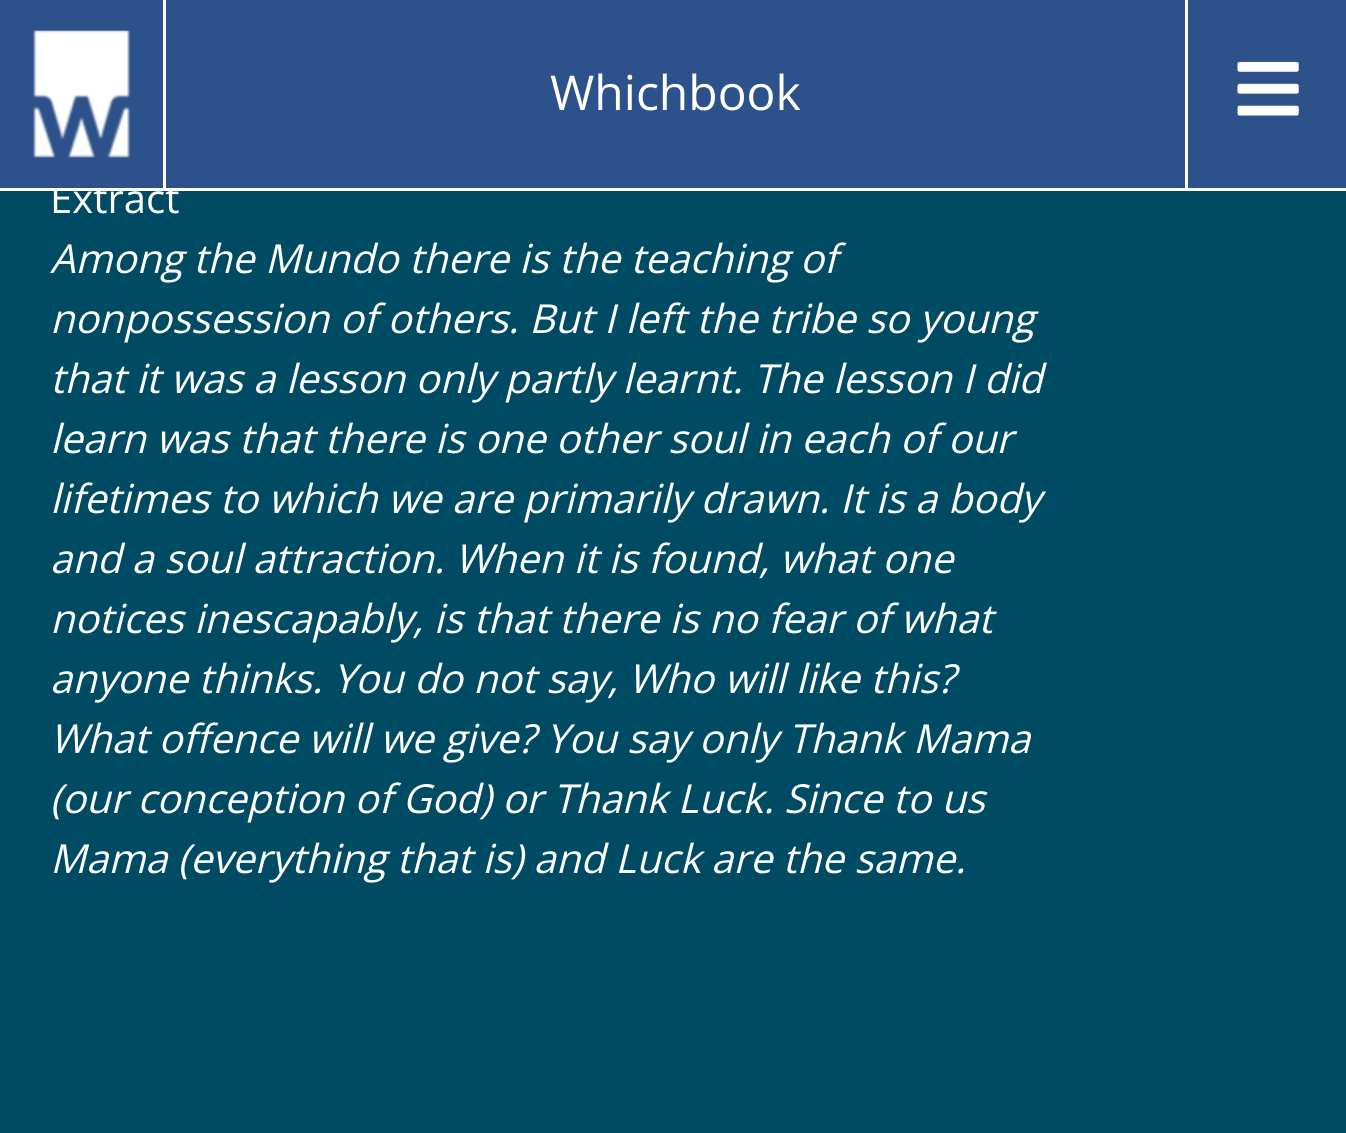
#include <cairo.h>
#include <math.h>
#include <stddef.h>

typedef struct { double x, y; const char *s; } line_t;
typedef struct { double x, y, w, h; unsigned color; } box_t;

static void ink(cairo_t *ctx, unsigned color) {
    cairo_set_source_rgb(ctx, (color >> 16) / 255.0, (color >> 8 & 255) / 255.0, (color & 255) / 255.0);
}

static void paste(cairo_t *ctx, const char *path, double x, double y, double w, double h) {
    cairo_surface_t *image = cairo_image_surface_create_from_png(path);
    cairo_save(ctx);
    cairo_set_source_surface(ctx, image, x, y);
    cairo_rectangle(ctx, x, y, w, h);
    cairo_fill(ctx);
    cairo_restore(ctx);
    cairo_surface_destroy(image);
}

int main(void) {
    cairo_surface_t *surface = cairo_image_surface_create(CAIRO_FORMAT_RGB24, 1346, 1133);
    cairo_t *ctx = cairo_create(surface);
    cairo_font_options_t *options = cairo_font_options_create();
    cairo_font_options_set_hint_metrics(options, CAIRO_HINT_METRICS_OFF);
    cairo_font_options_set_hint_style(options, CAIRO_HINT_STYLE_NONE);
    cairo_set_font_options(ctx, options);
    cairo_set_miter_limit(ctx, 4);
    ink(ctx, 0x004B64);
    cairo_paint(ctx);
    cairo_select_font_face(ctx, "Open Sans", CAIRO_FONT_SLANT_NORMAL, CAIRO_FONT_WEIGHT_NORMAL);
    cairo_set_font_size(ctx, 40);
    ink(ctx, 0xFFFFFF);
    cairo_move_to(ctx, 50, 213);
    cairo_show_text(ctx, "Extract");
    {
        static const box_t items[] = {
            {0, 0, 1346, 188, 0x2D518B},
            {0, 188, 1346, 3, 0xFFFFFF},
            {163, 0, 3, 188, 0xFFFFFF},
        };
        for (size_t i = 0; i < sizeof items / sizeof *items; i++) {
            ink(ctx, items[i].color);
            cairo_rectangle(ctx, items[i].x, items[i].y, items[i].w, items[i].h);
            cairo_fill(ctx);
        }
    }
    paste(ctx, "media/1.png", 33, 30, 98, 128);
    cairo_set_font_size(ctx, 48);
    cairo_move_to(ctx, 550, 110);
    cairo_show_text(ctx, "Whichbook");
    cairo_rectangle(ctx, 1185, 0, 3, 188);
    cairo_fill(ctx);
    paste(ctx, "media/2.png", 1237, 61, 62, 55);
    cairo_select_font_face(ctx, "Open Sans", CAIRO_FONT_SLANT_ITALIC, CAIRO_FONT_WEIGHT_NORMAL);
    cairo_set_font_size(ctx, 40);
    {
        static const line_t items[] = {
            {50, 273, "Among the Mundo there is the teaching of"},
            {50, 333, "nonpossession of others. But I left the tribe so young"},
            {50, 393, "that it was a lesson only partly learnt. The lesson I did"},
            {50, 453, "learn was that there is one other soul in each of our"},
            {50, 513, "lifetimes to which we are primarily drawn. It is a body"},
            {50, 573, "and a soul attraction. When it is found, what one"},
            {50, 633, "notices inescapably, is that there is no fear of what"},
            {50, 693, "anyone thinks. You do not say, Who will like this?"},
            {50, 753, "What offence will we give? You say only Thank Mama"},
            {50, 813, "(our conception of God) or Thank Luck. Since to us"},
            {50, 873, "Mama (everything that is) and Luck are the same."},
        };
        for (size_t i = 0; i < sizeof items / sizeof *items; i++) {
            cairo_move_to(ctx, items[i].x, items[i].y);
            cairo_show_text(ctx, items[i].s);
        }
    }
    cairo_surface_write_to_png(surface, "image.png");
    cairo_font_options_destroy(options);
    cairo_destroy(ctx);
    cairo_surface_destroy(surface);
    return 0;
}
